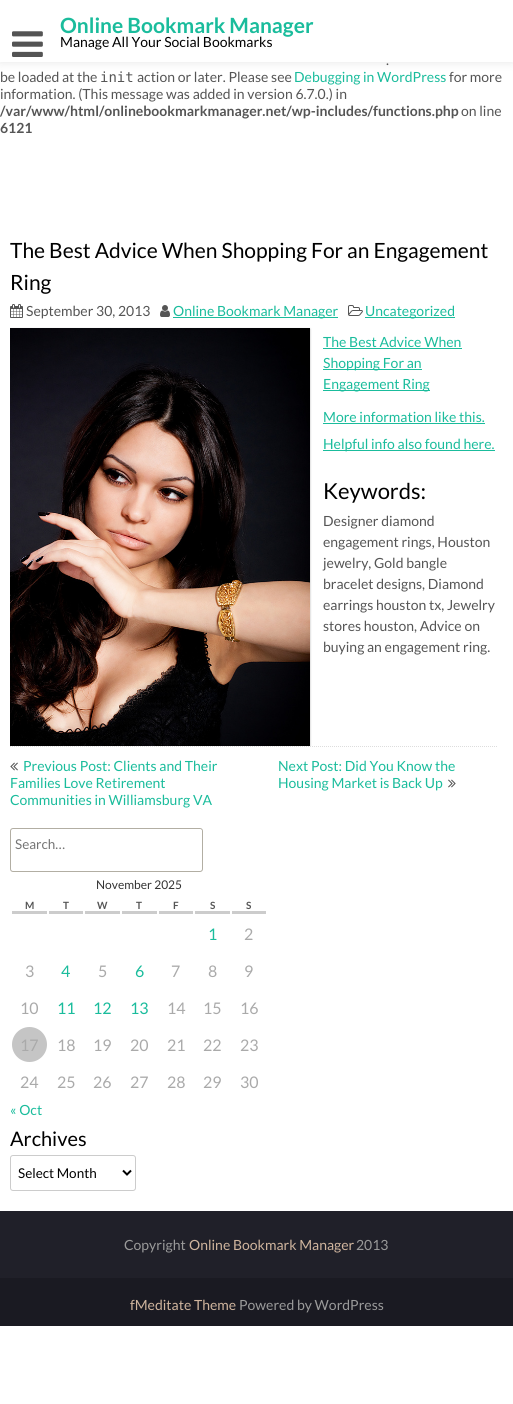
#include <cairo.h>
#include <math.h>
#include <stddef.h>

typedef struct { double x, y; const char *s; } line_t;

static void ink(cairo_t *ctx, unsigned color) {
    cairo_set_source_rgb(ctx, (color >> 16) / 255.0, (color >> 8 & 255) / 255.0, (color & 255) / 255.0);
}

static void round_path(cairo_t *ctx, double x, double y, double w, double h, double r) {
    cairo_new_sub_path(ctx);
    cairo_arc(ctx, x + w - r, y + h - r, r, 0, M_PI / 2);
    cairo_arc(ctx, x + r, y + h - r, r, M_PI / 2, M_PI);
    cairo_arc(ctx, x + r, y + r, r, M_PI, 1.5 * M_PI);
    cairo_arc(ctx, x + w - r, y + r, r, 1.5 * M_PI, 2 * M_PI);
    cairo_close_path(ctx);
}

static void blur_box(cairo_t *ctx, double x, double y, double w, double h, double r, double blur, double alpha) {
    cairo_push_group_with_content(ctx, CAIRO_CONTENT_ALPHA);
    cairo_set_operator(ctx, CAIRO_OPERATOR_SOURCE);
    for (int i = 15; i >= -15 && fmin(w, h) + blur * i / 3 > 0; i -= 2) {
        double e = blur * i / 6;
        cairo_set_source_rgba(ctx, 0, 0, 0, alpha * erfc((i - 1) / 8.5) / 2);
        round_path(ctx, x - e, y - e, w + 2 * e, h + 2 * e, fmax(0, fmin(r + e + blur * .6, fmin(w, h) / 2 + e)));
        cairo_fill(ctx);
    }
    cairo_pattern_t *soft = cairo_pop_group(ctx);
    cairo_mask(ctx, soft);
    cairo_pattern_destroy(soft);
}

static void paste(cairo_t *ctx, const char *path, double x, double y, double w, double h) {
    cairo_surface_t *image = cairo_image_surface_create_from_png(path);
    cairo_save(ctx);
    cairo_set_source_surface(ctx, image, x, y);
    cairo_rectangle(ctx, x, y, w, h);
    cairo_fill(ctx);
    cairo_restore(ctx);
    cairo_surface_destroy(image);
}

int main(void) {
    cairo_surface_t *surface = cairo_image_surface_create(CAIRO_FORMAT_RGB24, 513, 1404);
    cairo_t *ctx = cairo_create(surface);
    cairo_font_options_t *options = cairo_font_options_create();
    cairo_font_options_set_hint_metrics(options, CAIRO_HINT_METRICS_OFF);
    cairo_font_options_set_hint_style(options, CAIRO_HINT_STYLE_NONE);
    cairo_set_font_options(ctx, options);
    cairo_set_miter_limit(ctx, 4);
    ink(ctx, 0xFFFFFF);
    cairo_paint(ctx);
    ink(ctx, 0x000000);
    blur_box(ctx, 0, 0, 513, 62, 0, 5, 0.1);
    ink(ctx, 0xFFFFFF);
    cairo_rectangle(ctx, 0, 0, 513, 62);
    cairo_fill(ctx);
    paste(ctx, "media/1.png", 12, 31, 31, 26);
    cairo_select_font_face(ctx, "Lato", CAIRO_FONT_SLANT_NORMAL, CAIRO_FONT_WEIGHT_BOLD);
    cairo_set_font_size(ctx, 21);
    ink(ctx, 0x1ABC9C);
    cairo_move_to(ctx, 60, 33);
    cairo_show_text(ctx, "Online Bookmark Manager");
    cairo_select_font_face(ctx, "Lato", CAIRO_FONT_SLANT_NORMAL, CAIRO_FONT_WEIGHT_NORMAL);
    cairo_set_font_size(ctx, 14);
    ink(ctx, 0x000000);
    cairo_move_to(ctx, 60, 47);
    cairo_show_text(ctx, "Manage All Your Social Bookmarks");
    cairo_set_font_size(ctx, 21);
    cairo_move_to(ctx, 10, 258);
    cairo_show_text(ctx, "The Best Advice When Shopping For an Engagement");
    cairo_move_to(ctx, 10, 290);
    cairo_show_text(ctx, "Ring");
    paste(ctx, "media/2.png", 10, 304, 13, 14);
    cairo_set_font_size(ctx, 14);
    ink(ctx, 0x555555);
    cairo_move_to(ctx, 26, 316);
    cairo_show_text(ctx, "September 30, 2013");
    paste(ctx, "media/3.png", 160, 305, 10, 12);
    ink(ctx, 0x1ABC9C);
    cairo_rectangle(ctx, 173, 317, 165, 1);
    cairo_fill(ctx);
    cairo_move_to(ctx, 173, 316);
    cairo_show_text(ctx, "Online Bookmark Manager");
    paste(ctx, "media/4.png", 348, 305, 15, 11);
    cairo_rectangle(ctx, 365, 317, 90, 1);
    cairo_fill(ctx);
    cairo_move_to(ctx, 365, 316);
    cairo_show_text(ctx, "Uncategorized");
    cairo_new_path(ctx);
    cairo_move_to(ctx, 10, 746.5);
    cairo_line_to(ctx, 498, 746.5);
    ink(ctx, 0xDDDDDD);
    cairo_set_line_width(ctx, 1);
    cairo_set_dash(ctx, (double[]){1, 1}, 2, 0);
    cairo_stroke(ctx);
    cairo_save(ctx);
    cairo_rectangle(ctx, 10, 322, 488, 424);
    cairo_clip(ctx);
    ink(ctx, 0x000000);
    blur_box(ctx, 10, 329, 300, 418, 0, 1, 0.3);
    cairo_restore(ctx);
    paste(ctx, "media/5.png", 10, 328, 300, 418);
    ink(ctx, 0x1ABC9C);
    cairo_move_to(ctx, 323, 347);
    cairo_show_text(ctx, "The Best Advice When");
    cairo_rectangle(ctx, 323, 348, 139, 1);
    cairo_fill(ctx);
    cairo_rectangle(ctx, 323, 369, 99, 1);
    cairo_fill(ctx);
    cairo_move_to(ctx, 323, 368);
    cairo_show_text(ctx, "Shopping For an");
    cairo_rectangle(ctx, 323, 390, 107, 1);
    cairo_fill(ctx);
    cairo_move_to(ctx, 323, 389);
    cairo_show_text(ctx, "Engagement Ring");
    cairo_move_to(ctx, 323, 422);
    cairo_show_text(ctx, "More information like this.");
    cairo_rectangle(ctx, 323, 423, 162, 1);
    cairo_fill(ctx);
    cairo_rectangle(ctx, 323, 450, 172, 1);
    cairo_fill(ctx);
    cairo_move_to(ctx, 323, 449);
    cairo_show_text(ctx, "Helpful info also found here.");
    cairo_set_font_size(ctx, 22);
    ink(ctx, 0x000000);
    cairo_move_to(ctx, 323, 499);
    cairo_show_text(ctx, "Keywords:");
    cairo_set_font_size(ctx, 14);
    ink(ctx, 0x555555);
    {
        static const line_t items[] = {
            {323, 526, "Designer diamond"},
            {323, 547, "engagement rings, Houston"},
            {323, 568, "jewelry, Gold bangle"},
            {323, 589, "bracelet designs, Diamond"},
            {323, 610, "earrings houston tx, Jewelry"},
            {323, 631, "stores houston, Advice on"},
            {323, 652, "buying an engagement ring."},
        };
        for (size_t i = 0; i < sizeof items / sizeof *items; i++) {
            cairo_move_to(ctx, items[i].x, items[i].y);
            cairo_show_text(ctx, items[i].s);
        }
    }
    paste(ctx, "media/6.png", 10, 762, 8, 9);
    ink(ctx, 0x1ABC9C);
    {
        static const line_t items[] = {
            {23, 771, "Previous Post: Clients and Their"},
            {10, 788, "Families Love Retirement"},
            {10, 805, "Communities in Williamsburg VA"},
            {278, 771, "Next Post: Did You Know the"},
            {278, 788, "Housing Market is Back Up"},
        };
        for (size_t i = 0; i < sizeof items / sizeof *items; i++) {
            cairo_move_to(ctx, items[i].x, items[i].y);
            cairo_show_text(ctx, items[i].s);
        }
    }
    paste(ctx, "media/7.png", 448, 779, 8, 9);
    round_path(ctx, 10.5, 828.5, 192, 43, 2.5);
    ink(ctx, 0xB2AEA3);
    cairo_set_dash(ctx, NULL, 0, 0);
    cairo_stroke(ctx);
    cairo_set_font_size(ctx, 13.5);
    ink(ctx, 0x757575);
    cairo_move_to(ctx, 15, 849);
    cairo_show_text(ctx, "Search…");
    ink(ctx, 0xFFFFFF);
    round_path(ctx, 171, 829, 31, 28, 3);
    cairo_fill(ctx);
    cairo_set_font_size(ctx, 12);
    ink(ctx, 0x333333);
    cairo_move_to(ctx, 96, 889);
    cairo_show_text(ctx, "November 2025");
    ink(ctx, 0xCCCCCC);
    cairo_rectangle(ctx, 12, 911, 35, 3);
    cairo_fill(ctx);
    cairo_select_font_face(ctx, "Lato", CAIRO_FONT_SLANT_NORMAL, CAIRO_FONT_WEIGHT_BOLD);
    cairo_set_font_size(ctx, 10);
    ink(ctx, 0x555555);
    cairo_move_to(ctx, 25, 909);
    cairo_show_text(ctx, "M");
    ink(ctx, 0xCCCCCC);
    cairo_rectangle(ctx, 49, 911, 34, 3);
    cairo_fill(ctx);
    ink(ctx, 0x555555);
    cairo_move_to(ctx, 63, 909);
    cairo_show_text(ctx, "T");
    ink(ctx, 0xCCCCCC);
    cairo_rectangle(ctx, 85, 911, 35, 3);
    cairo_fill(ctx);
    ink(ctx, 0x555555);
    cairo_move_to(ctx, 97, 909);
    cairo_show_text(ctx, "W");
    ink(ctx, 0xCCCCCC);
    cairo_rectangle(ctx, 122, 911, 35, 3);
    cairo_fill(ctx);
    ink(ctx, 0x555555);
    cairo_move_to(ctx, 136, 909);
    cairo_show_text(ctx, "T");
    ink(ctx, 0xCCCCCC);
    cairo_rectangle(ctx, 159, 911, 34, 3);
    cairo_fill(ctx);
    ink(ctx, 0x555555);
    cairo_move_to(ctx, 173, 909);
    cairo_show_text(ctx, "F");
    ink(ctx, 0xCCCCCC);
    cairo_rectangle(ctx, 195, 911, 35, 3);
    cairo_fill(ctx);
    ink(ctx, 0x555555);
    cairo_move_to(ctx, 210, 909);
    cairo_show_text(ctx, "S");
    ink(ctx, 0xCCCCCC);
    cairo_rectangle(ctx, 232, 911, 34, 3);
    cairo_fill(ctx);
    ink(ctx, 0x555555);
    cairo_move_to(ctx, 246, 909);
    cairo_show_text(ctx, "S");
    cairo_select_font_face(ctx, "Lato", CAIRO_FONT_SLANT_NORMAL, CAIRO_FONT_WEIGHT_NORMAL);
    cairo_set_font_size(ctx, 16);
    ink(ctx, 0x1ABC9C);
    cairo_move_to(ctx, 208, 940);
    cairo_show_text(ctx, "1");
    ink(ctx, 0xAAAAAA);
    cairo_move_to(ctx, 244, 940);
    cairo_show_text(ctx, "2");
    cairo_move_to(ctx, 25, 977);
    cairo_show_text(ctx, "3");
    ink(ctx, 0x1ABC9C);
    cairo_move_to(ctx, 61, 977);
    cairo_show_text(ctx, "4");
    ink(ctx, 0xAAAAAA);
    cairo_move_to(ctx, 98, 977);
    cairo_show_text(ctx, "5");
    ink(ctx, 0x1ABC9C);
    cairo_move_to(ctx, 135, 977);
    cairo_show_text(ctx, "6");
    ink(ctx, 0xAAAAAA);
    {
        static const line_t items[] = {
            {171, 977, "7"},
            {208, 977, "8"},
            {244, 977, "9"},
            {20, 1014, "10"},
        };
        for (size_t i = 0; i < sizeof items / sizeof *items; i++) {
            cairo_move_to(ctx, items[i].x, items[i].y);
            cairo_show_text(ctx, items[i].s);
        }
    }
    ink(ctx, 0x1ABC9C);
    {
        static const line_t items[] = {
            {57, 1014, "11"},
            {93, 1014, "12"},
            {130, 1014, "13"},
        };
        for (size_t i = 0; i < sizeof items / sizeof *items; i++) {
            cairo_move_to(ctx, items[i].x, items[i].y);
            cairo_show_text(ctx, items[i].s);
        }
    }
    ink(ctx, 0xAAAAAA);
    {
        static const line_t items[] = {
            {167, 1014, "14"},
            {203, 1014, "15"},
            {240, 1014, "16"},
        };
        for (size_t i = 0; i < sizeof items / sizeof *items; i++) {
            cairo_move_to(ctx, items[i].x, items[i].y);
            cairo_show_text(ctx, items[i].s);
        }
    }
    ink(ctx, 0xC5C5C5);
    cairo_new_path(ctx);
    cairo_arc(ctx, 29.5, 1044.5, 17.5, 0, 2 * M_PI);
    cairo_fill(ctx);
    ink(ctx, 0xAAAAAA);
    {
        static const line_t items[] = {
            {20, 1051, "17"},
            {57, 1051, "18"},
            {93, 1051, "19"},
            {130, 1051, "20"},
            {167, 1051, "21"},
            {203, 1051, "22"},
            {240, 1051, "23"},
            {20, 1088, "24"},
            {57, 1088, "25"},
            {93, 1088, "26"},
            {130, 1088, "27"},
            {167, 1088, "28"},
            {203, 1088, "29"},
            {240, 1088, "30"},
        };
        for (size_t i = 0; i < sizeof items / sizeof *items; i++) {
            cairo_move_to(ctx, items[i].x, items[i].y);
            cairo_show_text(ctx, items[i].s);
        }
    }
    cairo_set_font_size(ctx, 14);
    ink(ctx, 0x1ABC9C);
    cairo_move_to(ctx, 10, 1115);
    cairo_show_text(ctx, "« Oct");
    cairo_set_font_size(ctx, 20);
    ink(ctx, 0x000000);
    cairo_move_to(ctx, 10, 1146);
    cairo_show_text(ctx, "Archives");
    round_path(ctx, 10.5, 1155.5, 125, 35, 2.5);
    ink(ctx, 0xCCCCCC);
    cairo_stroke(ctx);
    cairo_new_path(ctx);
    cairo_move_to(ctx, 123, 1170.5);
    cairo_line_to(ctx, 127, 1174.5);
    cairo_line_to(ctx, 131, 1170.5);
    ink(ctx, 0x000000);
    cairo_set_line_width(ctx, 2);
    cairo_stroke(ctx);
    cairo_set_font_size(ctx, 13.5);
    cairo_move_to(ctx, 18, 1178);
    cairo_show_text(ctx, "Select Month");
    ink(ctx, 0x202029);
    cairo_rectangle(ctx, 0, 1211, 513, 67);
    cairo_fill(ctx);
    cairo_set_font_size(ctx, 14);
    ink(ctx, 0x9A9A9A);
    cairo_move_to(ctx, 124, 1250);
    cairo_show_text(ctx, "Copyright");
    ink(ctx, 0xD0B59E);
    cairo_move_to(ctx, 189, 1250);
    cairo_show_text(ctx, "Online Bookmark Manager");
    ink(ctx, 0x9A9A9A);
    cairo_move_to(ctx, 356, 1250);
    cairo_show_text(ctx, "2013");
    ink(ctx, 0x1A1A22);
    cairo_rectangle(ctx, 0, 1278, 513, 48);
    cairo_fill(ctx);
    ink(ctx, 0xD0B59E);
    cairo_move_to(ctx, 130, 1310);
    cairo_show_text(ctx, "fMeditate Theme");
    ink(ctx, 0x9A9A9A);
    cairo_move_to(ctx, 239, 1310);
    cairo_show_text(ctx, "Powered by WordPress");
    ink(ctx, 0x555555);
    cairo_move_to(ctx, 386, 65);
    cairo_show_text(ctx, ".");
    cairo_move_to(ctx, 0, 82);
    cairo_show_text(ctx, "be loaded at the");
    cairo_select_font_face(ctx, "DejaVu Sans Mono", CAIRO_FONT_SLANT_NORMAL, CAIRO_FONT_WEIGHT_NORMAL);
    cairo_move_to(ctx, 100, 82);
    cairo_show_text(ctx, "init");
    cairo_select_font_face(ctx, "Lato", CAIRO_FONT_SLANT_NORMAL, CAIRO_FONT_WEIGHT_NORMAL);
    cairo_move_to(ctx, 137, 82);
    cairo_show_text(ctx, "action or later. Please see");
    ink(ctx, 0x1ABC9C);
    cairo_move_to(ctx, 294, 82);
    cairo_show_text(ctx, "Debugging in WordPress");
    ink(ctx, 0x555555);
    cairo_move_to(ctx, 449, 82);
    cairo_show_text(ctx, "for more");
    cairo_move_to(ctx, 0, 99);
    cairo_show_text(ctx, "information. (This message was added in version 6.7.0.) in");
    cairo_select_font_face(ctx, "Lato", CAIRO_FONT_SLANT_NORMAL, CAIRO_FONT_WEIGHT_BOLD);
    cairo_move_to(ctx, 0, 116);
    cairo_show_text(ctx, "/var/www/html/onlinebookmarkmanager.net/wp-includes/functions.php");
    cairo_select_font_face(ctx, "Lato", CAIRO_FONT_SLANT_NORMAL, CAIRO_FONT_WEIGHT_NORMAL);
    cairo_move_to(ctx, 461, 116);
    cairo_show_text(ctx, "on line");
    cairo_select_font_face(ctx, "Lato", CAIRO_FONT_SLANT_NORMAL, CAIRO_FONT_WEIGHT_BOLD);
    cairo_move_to(ctx, 0, 133);
    cairo_show_text(ctx, "6121");
    cairo_surface_write_to_png(surface, "image.png");
    cairo_font_options_destroy(options);
    cairo_destroy(ctx);
    cairo_surface_destroy(surface);
    return 0;
}
